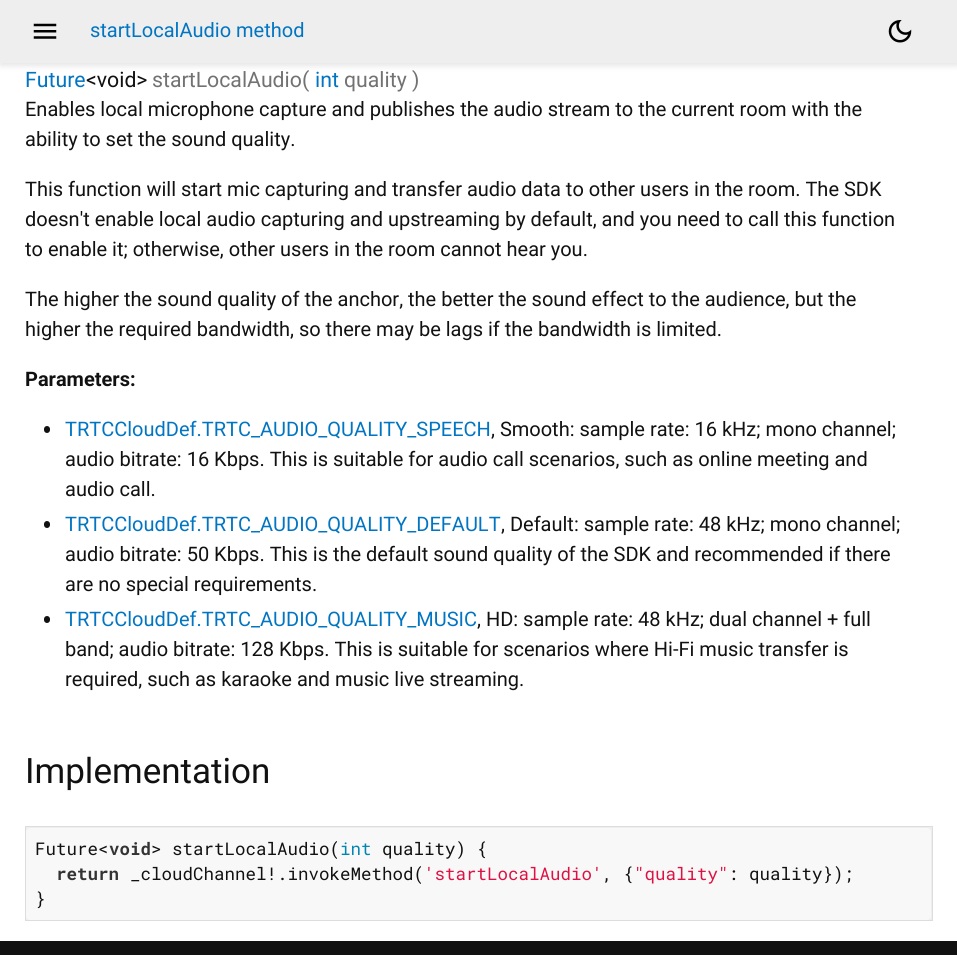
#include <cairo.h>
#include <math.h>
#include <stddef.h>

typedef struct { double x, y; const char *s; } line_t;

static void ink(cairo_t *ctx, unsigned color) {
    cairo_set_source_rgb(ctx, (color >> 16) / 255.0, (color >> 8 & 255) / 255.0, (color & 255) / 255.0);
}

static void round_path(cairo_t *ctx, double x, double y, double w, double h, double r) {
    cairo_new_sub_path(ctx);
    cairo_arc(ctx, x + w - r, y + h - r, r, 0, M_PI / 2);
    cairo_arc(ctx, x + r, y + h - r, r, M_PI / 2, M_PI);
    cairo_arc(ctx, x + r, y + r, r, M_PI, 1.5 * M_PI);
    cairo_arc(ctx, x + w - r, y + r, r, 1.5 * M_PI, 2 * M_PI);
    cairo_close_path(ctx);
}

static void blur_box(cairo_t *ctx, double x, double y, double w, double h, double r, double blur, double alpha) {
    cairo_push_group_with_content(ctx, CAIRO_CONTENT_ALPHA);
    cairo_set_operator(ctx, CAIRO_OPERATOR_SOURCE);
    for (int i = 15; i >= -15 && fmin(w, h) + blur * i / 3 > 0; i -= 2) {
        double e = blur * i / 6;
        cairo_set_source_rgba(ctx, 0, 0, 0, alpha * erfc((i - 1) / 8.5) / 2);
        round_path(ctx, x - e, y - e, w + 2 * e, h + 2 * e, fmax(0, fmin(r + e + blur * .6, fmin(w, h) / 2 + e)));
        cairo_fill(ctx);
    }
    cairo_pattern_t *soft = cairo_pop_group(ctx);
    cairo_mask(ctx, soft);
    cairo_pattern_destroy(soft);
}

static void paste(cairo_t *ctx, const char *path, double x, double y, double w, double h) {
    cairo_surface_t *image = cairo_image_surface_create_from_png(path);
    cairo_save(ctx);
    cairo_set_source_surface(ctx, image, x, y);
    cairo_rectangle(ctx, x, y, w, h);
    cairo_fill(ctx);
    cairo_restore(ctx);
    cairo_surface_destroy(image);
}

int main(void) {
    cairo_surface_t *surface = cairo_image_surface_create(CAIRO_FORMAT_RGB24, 957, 955);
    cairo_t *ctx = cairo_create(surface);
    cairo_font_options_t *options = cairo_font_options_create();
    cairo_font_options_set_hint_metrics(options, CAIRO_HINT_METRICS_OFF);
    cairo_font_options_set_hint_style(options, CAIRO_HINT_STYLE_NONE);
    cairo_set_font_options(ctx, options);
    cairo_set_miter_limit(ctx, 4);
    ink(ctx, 0xFFFFFF);
    cairo_paint(ctx);
    ink(ctx, 0x000000);
    blur_box(ctx, 0, 4, 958, 62, 0, 3, 0.1);
    ink(ctx, 0xEEEEEE);
    cairo_rectangle(ctx, 0, 0, 957, 63);
    cairo_fill(ctx);
    paste(ctx, "media/1.png", 33, 23, 24, 16);
    cairo_select_font_face(ctx, "Roboto", CAIRO_FONT_SLANT_NORMAL, CAIRO_FONT_WEIGHT_NORMAL);
    cairo_set_font_size(ctx, 20);
    ink(ctx, 0x0175C2);
    cairo_move_to(ctx, 90, 37);
    cairo_show_text(ctx, "startLocalAudio method");
    paste(ctx, "media/2.png", 888, 20, 24, 23);
    cairo_set_font_size(ctx, 21.25);
    cairo_move_to(ctx, 25, 87);
    cairo_show_text(ctx, "Future");
    ink(ctx, 0x111111);
    cairo_move_to(ctx, 86, 87);
    cairo_show_text(ctx, "<void>");
    ink(ctx, 0x727272);
    cairo_move_to(ctx, 152, 87);
    cairo_show_text(ctx, "startLocalAudio(");
    ink(ctx, 0x0175C2);
    cairo_move_to(ctx, 315, 87);
    cairo_show_text(ctx, "int");
    ink(ctx, 0x727272);
    cairo_move_to(ctx, 344, 87);
    cairo_show_text(ctx, "quality )");
    cairo_set_font_size(ctx, 20);
    ink(ctx, 0x111111);
    {
        static const line_t items[] = {
            {25, 116, "Enables local microphone capture and publishes the audio stream to the current room with the"},
            {25, 146, "ability to set the sound quality."},
            {25, 196, "This function will start mic capturing and transfer audio data to other users in the room. The SDK"},
            {25, 226, "doesn't enable local audio capturing and upstreaming by default, and you need to call this function"},
            {25, 256, "to enable it; otherwise, other users in the room cannot hear you."},
            {25, 306, "The higher the sound quality of the anchor, the better the sound effect to the audience, but the"},
            {25, 336, "higher the required bandwidth, so there may be lags if the bandwidth is limited."},
        };
        for (size_t i = 0; i < sizeof items / sizeof *items; i++) {
            cairo_move_to(ctx, items[i].x, items[i].y);
            cairo_show_text(ctx, items[i].s);
        }
    }
    cairo_select_font_face(ctx, "Roboto", CAIRO_FONT_SLANT_NORMAL, CAIRO_FONT_WEIGHT_BOLD);
    cairo_move_to(ctx, 25, 386);
    cairo_show_text(ctx, "Parameters:");
    round_path(ctx, 44, 426, 6, 7, 3);
    cairo_fill(ctx);
    cairo_select_font_face(ctx, "Roboto", CAIRO_FONT_SLANT_NORMAL, CAIRO_FONT_WEIGHT_NORMAL);
    ink(ctx, 0x0175C2);
    cairo_move_to(ctx, 65, 436);
    cairo_show_text(ctx, "TRTCCloudDef.TRTC_AUDIO_QUALITY_SPEECH");
    ink(ctx, 0x111111);
    {
        static const line_t items[] = {
            {491, 436, ", Smooth: sample rate: 16 kHz; mono channel;"},
            {65, 466, "audio bitrate: 16 Kbps. This is suitable for audio call scenarios, such as online meeting and"},
            {65, 496, "audio call."},
        };
        for (size_t i = 0; i < sizeof items / sizeof *items; i++) {
            cairo_move_to(ctx, items[i].x, items[i].y);
            cairo_show_text(ctx, items[i].s);
        }
    }
    round_path(ctx, 44, 521, 6, 7, 3);
    cairo_fill(ctx);
    ink(ctx, 0x0175C2);
    cairo_move_to(ctx, 65, 531);
    cairo_show_text(ctx, "TRTCCloudDef.TRTC_AUDIO_QUALITY_DEFAULT");
    ink(ctx, 0x111111);
    {
        static const line_t items[] = {
            {501, 531, ", Default: sample rate: 48 kHz; mono channel;"},
            {65, 561, "audio bitrate: 50 Kbps. This is the default sound quality of the SDK and recommended if there"},
            {65, 591, "are no special requirements."},
        };
        for (size_t i = 0; i < sizeof items / sizeof *items; i++) {
            cairo_move_to(ctx, items[i].x, items[i].y);
            cairo_show_text(ctx, items[i].s);
        }
    }
    round_path(ctx, 44, 616, 6, 7, 3);
    cairo_fill(ctx);
    ink(ctx, 0x0175C2);
    cairo_move_to(ctx, 65, 626);
    cairo_show_text(ctx, "TRTCCloudDef.TRTC_AUDIO_QUALITY_MUSIC");
    ink(ctx, 0x111111);
    {
        static const line_t items[] = {
            {477, 626, ", HD: sample rate: 48 kHz; dual channel + full"},
            {65, 656, "band; audio bitrate: 128 Kbps. This is suitable for scenarios where Hi-Fi music transfer is"},
            {65, 686, "required, such as karaoke and music live streaming."},
        };
        for (size_t i = 0; i < sizeof items / sizeof *items; i++) {
            cairo_move_to(ctx, items[i].x, items[i].y);
            cairo_show_text(ctx, items[i].s);
        }
    }
    cairo_set_font_size(ctx, 35);
    cairo_move_to(ctx, 25, 783);
    cairo_show_text(ctx, "Implementation");
    ink(ctx, 0xEEEEEE);
    cairo_rectangle(ctx, 25.5, 826.5, 907, 94);
    cairo_fill_preserve(ctx);
    ink(ctx, 0xDDDDDD);
    cairo_set_line_width(ctx, 1);
    cairo_stroke(ctx);
    ink(ctx, 0xF8F8F8);
    round_path(ctx, 26, 828, 905, 92, 4);
    cairo_fill(ctx);
    cairo_select_font_face(ctx, "Roboto Mono", CAIRO_FONT_SLANT_NORMAL, CAIRO_FONT_WEIGHT_NORMAL);
    cairo_set_font_size(ctx, 17.5);
    ink(ctx, 0x111111);
    cairo_move_to(ctx, 35, 855);
    cairo_show_text(ctx, "Future<");
    cairo_select_font_face(ctx, "Roboto Mono", CAIRO_FONT_SLANT_NORMAL, CAIRO_FONT_WEIGHT_BOLD);
    ink(ctx, 0x333333);
    cairo_move_to(ctx, 109, 855);
    cairo_show_text(ctx, "void");
    cairo_select_font_face(ctx, "Roboto Mono", CAIRO_FONT_SLANT_NORMAL, CAIRO_FONT_WEIGHT_NORMAL);
    ink(ctx, 0x111111);
    cairo_move_to(ctx, 151, 855);
    cairo_show_text(ctx, "> startLocalAudio(");
    ink(ctx, 0x0086B3);
    cairo_move_to(ctx, 340, 855);
    cairo_show_text(ctx, "int");
    ink(ctx, 0x111111);
    cairo_move_to(ctx, 382, 855);
    cairo_show_text(ctx, "quality) {");
    cairo_select_font_face(ctx, "Roboto Mono", CAIRO_FONT_SLANT_NORMAL, CAIRO_FONT_WEIGHT_BOLD);
    ink(ctx, 0x333333);
    cairo_move_to(ctx, 56, 880);
    cairo_show_text(ctx, "return");
    cairo_select_font_face(ctx, "Roboto Mono", CAIRO_FONT_SLANT_NORMAL, CAIRO_FONT_WEIGHT_NORMAL);
    ink(ctx, 0x111111);
    cairo_move_to(ctx, 130, 880);
    cairo_show_text(ctx, "_cloudChannel!.invokeMethod(");
    ink(ctx, 0xDD1144);
    cairo_move_to(ctx, 424, 880);
    cairo_show_text(ctx, "'startLocalAudio'");
    ink(ctx, 0x111111);
    cairo_move_to(ctx, 602, 880);
    cairo_show_text(ctx, ", {");
    ink(ctx, 0xDD1144);
    cairo_move_to(ctx, 634, 880);
    cairo_show_text(ctx, "\"quality\"");
    ink(ctx, 0x111111);
    cairo_move_to(ctx, 728, 880);
    cairo_show_text(ctx, ": quality});");
    cairo_move_to(ctx, 35, 905);
    cairo_show_text(ctx, "}");
    cairo_rectangle(ctx, 0, 941, 957, 14);
    cairo_fill(ctx);
    cairo_surface_write_to_png(surface, "image.png");
    cairo_font_options_destroy(options);
    cairo_destroy(ctx);
    cairo_surface_destroy(surface);
    return 0;
}
